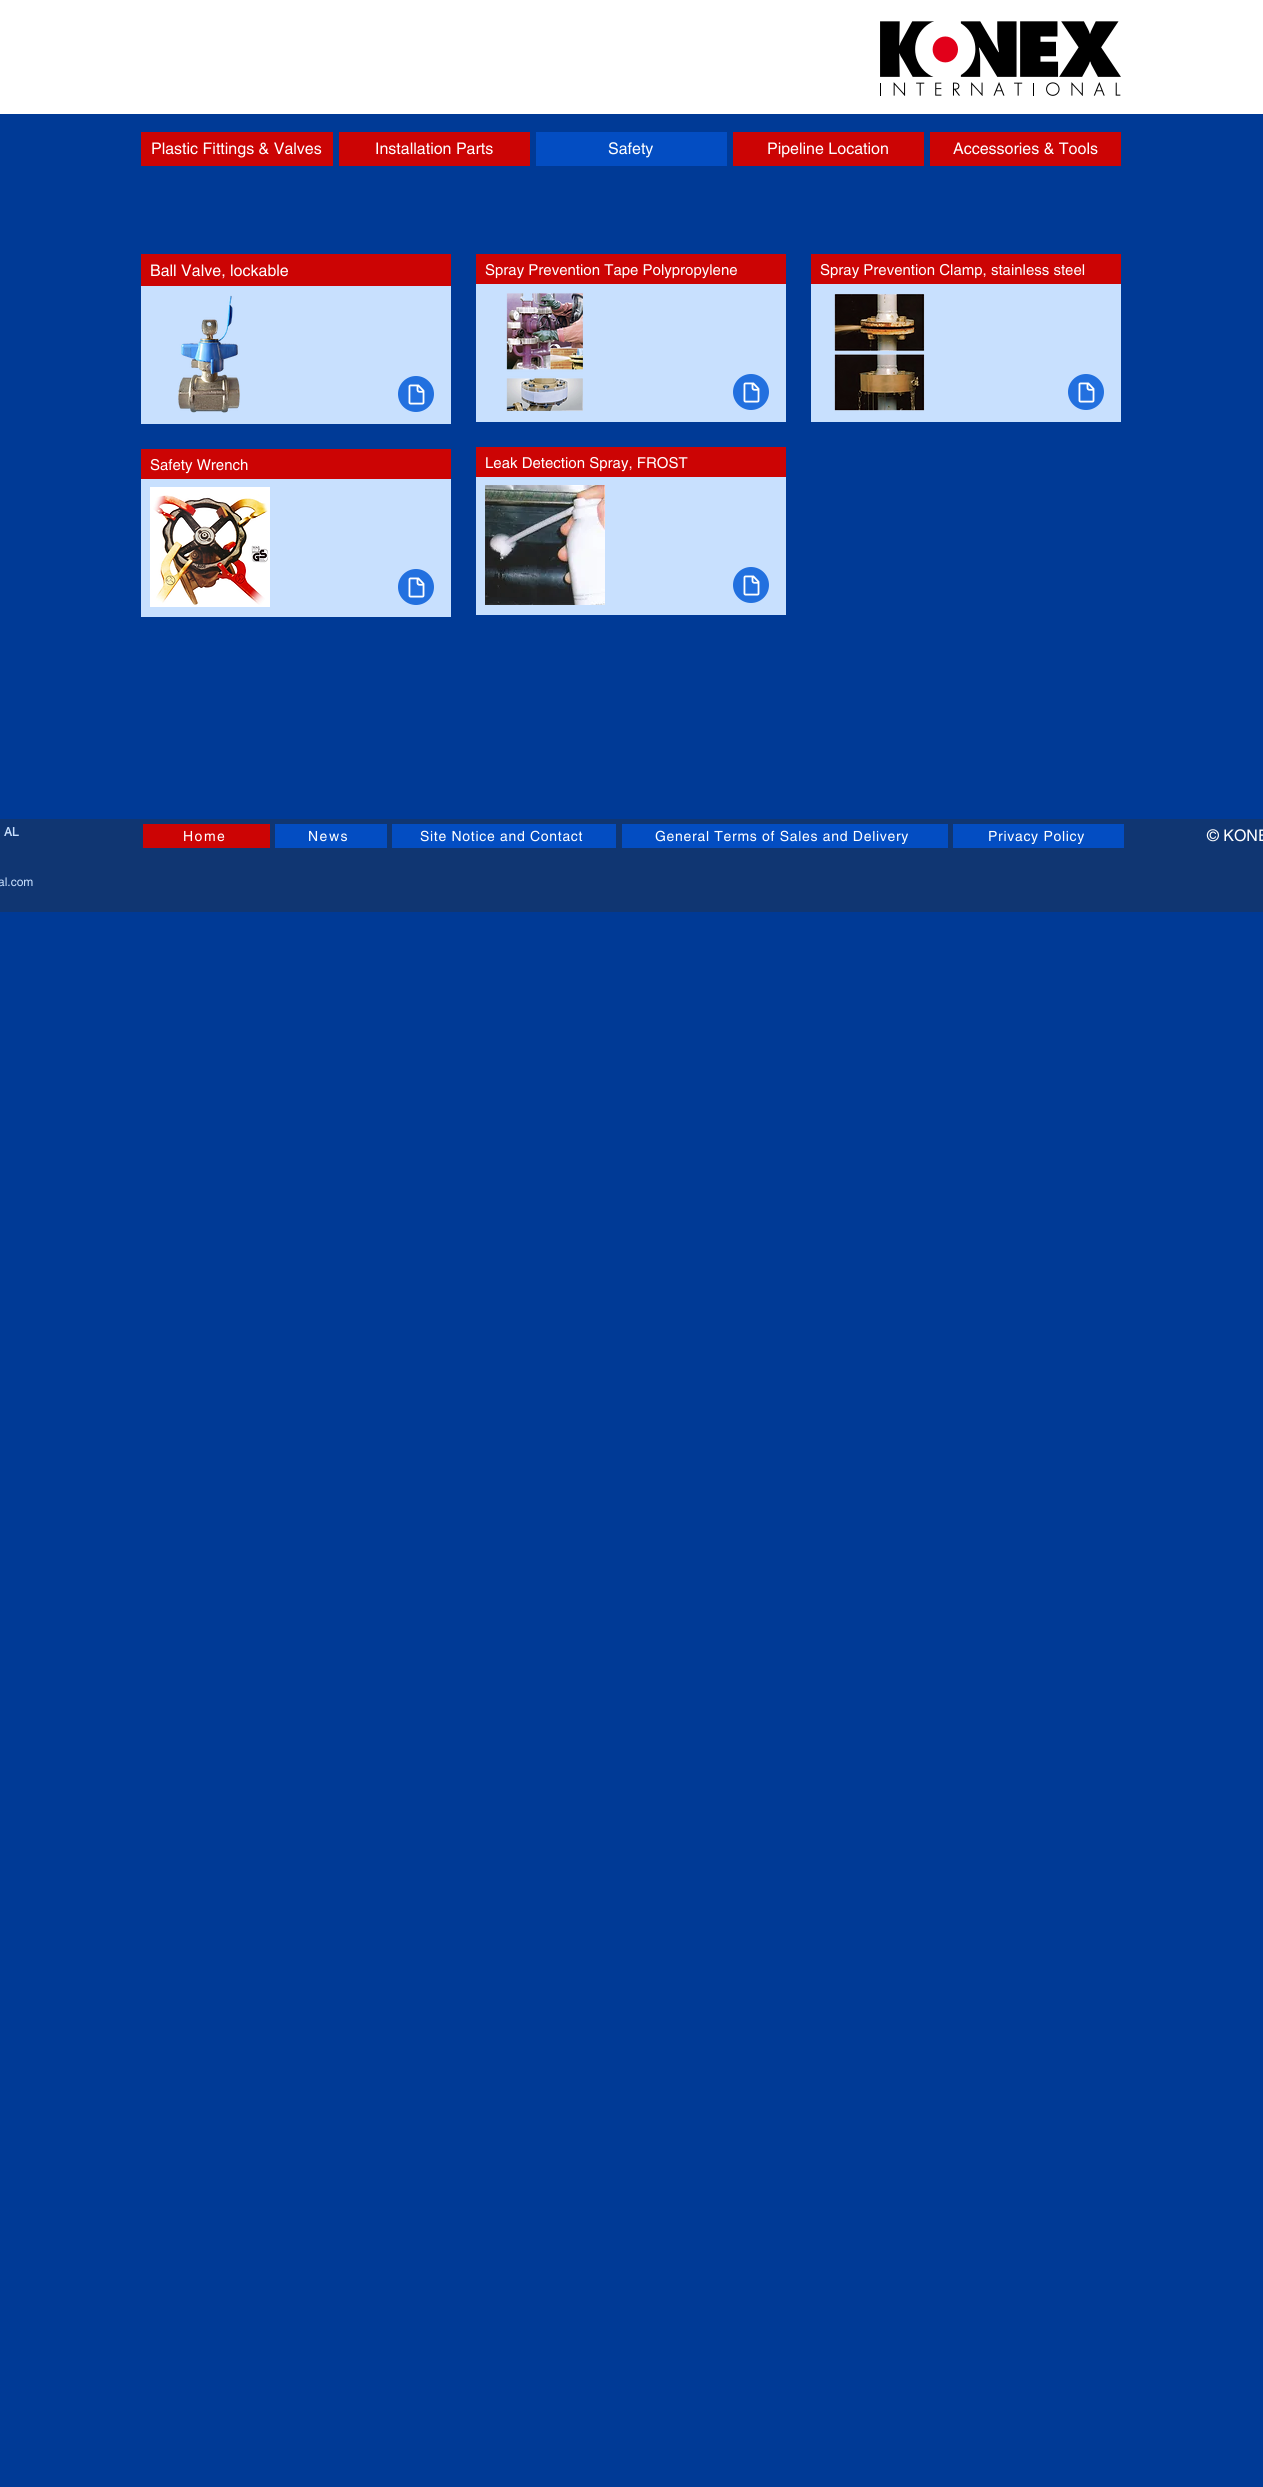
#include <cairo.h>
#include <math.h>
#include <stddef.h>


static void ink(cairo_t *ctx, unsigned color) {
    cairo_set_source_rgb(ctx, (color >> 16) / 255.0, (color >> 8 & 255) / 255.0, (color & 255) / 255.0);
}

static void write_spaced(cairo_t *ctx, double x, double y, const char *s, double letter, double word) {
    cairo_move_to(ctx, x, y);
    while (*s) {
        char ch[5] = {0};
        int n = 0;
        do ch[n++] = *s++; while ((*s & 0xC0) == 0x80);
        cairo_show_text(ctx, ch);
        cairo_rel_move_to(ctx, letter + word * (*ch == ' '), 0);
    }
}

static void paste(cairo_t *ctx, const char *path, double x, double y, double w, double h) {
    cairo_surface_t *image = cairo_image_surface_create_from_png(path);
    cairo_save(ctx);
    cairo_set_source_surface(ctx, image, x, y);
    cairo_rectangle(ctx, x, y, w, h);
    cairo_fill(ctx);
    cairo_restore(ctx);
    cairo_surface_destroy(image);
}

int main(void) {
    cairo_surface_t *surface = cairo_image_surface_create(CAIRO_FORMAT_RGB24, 1263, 2487);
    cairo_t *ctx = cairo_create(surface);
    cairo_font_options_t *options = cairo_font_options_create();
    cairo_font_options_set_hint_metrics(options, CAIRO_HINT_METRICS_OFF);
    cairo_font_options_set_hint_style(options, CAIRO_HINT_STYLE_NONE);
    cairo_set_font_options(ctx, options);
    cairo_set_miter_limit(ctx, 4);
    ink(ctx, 0x003A96);
    cairo_paint(ctx);
    ink(ctx, 0xFFFFFF);
    cairo_rectangle(ctx, 0, 0, 1263, 114);
    cairo_fill(ctx);
    paste(ctx, "media/1.png", 880, 21, 241, 75);
    ink(ctx, 0xCC0404);
    cairo_rectangle(ctx, 141, 132, 192, 34);
    cairo_fill(ctx);
    cairo_select_font_face(ctx, "helvetica", CAIRO_FONT_SLANT_NORMAL, CAIRO_FONT_WEIGHT_NORMAL);
    cairo_set_font_size(ctx, 16);
    ink(ctx, 0xFFFFFF);
    cairo_move_to(ctx, 151, 154);
    cairo_show_text(ctx, "Plastic Fittings & Valves");
    ink(ctx, 0xCC0404);
    cairo_rectangle(ctx, 339, 132, 191, 34);
    cairo_fill(ctx);
    ink(ctx, 0xFFFFFF);
    cairo_move_to(ctx, 375, 154);
    cairo_show_text(ctx, "Installation Parts");
    ink(ctx, 0x034DC2);
    cairo_rectangle(ctx, 536, 132, 191, 34);
    cairo_fill(ctx);
    ink(ctx, 0xFFFFFF);
    cairo_move_to(ctx, 608, 154);
    cairo_show_text(ctx, "Safety");
    ink(ctx, 0xCC0404);
    cairo_rectangle(ctx, 733, 132, 191, 34);
    cairo_fill(ctx);
    ink(ctx, 0xFFFFFF);
    cairo_move_to(ctx, 767, 154);
    cairo_show_text(ctx, "Pipeline Location");
    ink(ctx, 0xCC0404);
    cairo_rectangle(ctx, 930, 132, 191, 34);
    cairo_fill(ctx);
    ink(ctx, 0xFFFFFF);
    cairo_move_to(ctx, 953, 154);
    cairo_show_text(ctx, "Accessories & Tools");
    ink(ctx, 0xCC0404);
    cairo_rectangle(ctx, 141, 254, 310, 32);
    cairo_fill(ctx);
    ink(ctx, 0xFFFFFF);
    cairo_move_to(ctx, 150, 276);
    cairo_show_text(ctx, "Ball Valve, lockable");
    ink(ctx, 0xC8E0FE);
    cairo_rectangle(ctx, 141, 286, 310, 138);
    cairo_fill(ctx);
    paste(ctx, "media/2.png", 178, 295, 62, 118);
    ink(ctx, 0x2270DF);
    cairo_arc(ctx, 416, 394, 18, 0, 2 * M_PI);
    cairo_fill(ctx);
    paste(ctx, "media/3.png", 408, 384, 17, 21);
    ink(ctx, 0xCC0404);
    cairo_rectangle(ctx, 141, 449, 310, 30);
    cairo_fill(ctx);
    cairo_set_font_size(ctx, 15);
    ink(ctx, 0xFFFFFF);
    cairo_move_to(ctx, 150, 470);
    cairo_show_text(ctx, "Safety Wrench");
    ink(ctx, 0xC8E0FE);
    cairo_rectangle(ctx, 141, 479, 310, 138);
    cairo_fill(ctx);
    paste(ctx, "media/4.png", 150, 487, 120, 120);
    ink(ctx, 0x2270DF);
    cairo_arc(ctx, 416, 587, 18, 0, 2 * M_PI);
    cairo_fill(ctx);
    paste(ctx, "media/3.png", 408, 577, 17, 21);
    ink(ctx, 0xCC0404);
    cairo_rectangle(ctx, 476, 254, 310, 30);
    cairo_fill(ctx);
    ink(ctx, 0xFFFFFF);
    cairo_move_to(ctx, 485, 275);
    cairo_show_text(ctx, "Spray Prevention Tape Polypropylene");
    ink(ctx, 0xC8E0FE);
    cairo_rectangle(ctx, 476, 284, 310, 138);
    cairo_fill(ctx);
    paste(ctx, "media/5.png", 506, 293, 77, 119);
    ink(ctx, 0x2270DF);
    cairo_arc(ctx, 751, 392, 18, 0, 2 * M_PI);
    cairo_fill(ctx);
    paste(ctx, "media/3.png", 743, 382, 17, 21);
    ink(ctx, 0xCC0404);
    cairo_rectangle(ctx, 476, 447, 310, 30);
    cairo_fill(ctx);
    ink(ctx, 0xFFFFFF);
    cairo_move_to(ctx, 485, 468);
    cairo_show_text(ctx, "Leak Detection Spray, FROST");
    ink(ctx, 0xC8E0FE);
    cairo_rectangle(ctx, 476, 477, 310, 138);
    cairo_fill(ctx);
    paste(ctx, "media/6.png", 485, 485, 120, 120);
    ink(ctx, 0x2270DF);
    cairo_arc(ctx, 751, 585, 18, 0, 2 * M_PI);
    cairo_fill(ctx);
    paste(ctx, "media/3.png", 743, 575, 17, 21);
    ink(ctx, 0xCC0404);
    cairo_rectangle(ctx, 811, 254, 310, 30);
    cairo_fill(ctx);
    ink(ctx, 0xFFFFFF);
    cairo_move_to(ctx, 820, 275);
    cairo_show_text(ctx, "Spray Prevention Clamp, stainless steel");
    ink(ctx, 0xC8E0FE);
    cairo_rectangle(ctx, 811, 284, 310, 138);
    cairo_fill(ctx);
    paste(ctx, "media/7.png", 834, 294, 91, 117);
    ink(ctx, 0x2270DF);
    cairo_arc(ctx, 1086, 392, 18, 0, 2 * M_PI);
    cairo_fill(ctx);
    paste(ctx, "media/3.png", 1078, 382, 17, 21);
    ink(ctx, 0x103672);
    cairo_rectangle(ctx, 0, 819, 1263, 93);
    cairo_fill(ctx);
    cairo_select_font_face(ctx, "helvetica", CAIRO_FONT_SLANT_NORMAL, CAIRO_FONT_WEIGHT_BOLD);
    cairo_set_font_size(ctx, 12);
    ink(ctx, 0xC8E0FE);
    cairo_move_to(ctx, 4, 836);
    cairo_show_text(ctx, "AL");
    cairo_select_font_face(ctx, "helvetica", CAIRO_FONT_SLANT_NORMAL, CAIRO_FONT_WEIGHT_NORMAL);
    cairo_move_to(ctx, -2, 886);
    cairo_show_text(ctx, "al.com");
    ink(ctx, 0xCC0404);
    cairo_rectangle(ctx, 143, 824, 127, 24);
    cairo_fill(ctx);
    cairo_set_font_size(ctx, 14);
    ink(ctx, 0xFFFFFF);
    write_spaced(ctx, 183, 841, "Home", 1.5, 0);
    ink(ctx, 0x034DC2);
    cairo_rectangle(ctx, 275, 824, 112, 24);
    cairo_fill(ctx);
    ink(ctx, 0xFFFFFF);
    write_spaced(ctx, 308, 841, "News", 1.5, 0);
    ink(ctx, 0x034DC2);
    cairo_rectangle(ctx, 392, 824, 224, 24);
    cairo_fill(ctx);
    ink(ctx, 0xFFFFFF);
    write_spaced(ctx, 420, 841, "Site Notice and Contact", 0.7, 0);
    ink(ctx, 0x034DC2);
    cairo_rectangle(ctx, 622, 824, 326, 24);
    cairo_fill(ctx);
    ink(ctx, 0xFFFFFF);
    write_spaced(ctx, 655, 841, "General Terms of Sales and Delivery", 0.7, 0);
    ink(ctx, 0x034DC2);
    cairo_rectangle(ctx, 953, 824, 171, 24);
    cairo_fill(ctx);
    ink(ctx, 0xFFFFFF);
    write_spaced(ctx, 988, 841, "Privacy Policy", 0.7, 0);
    cairo_set_font_size(ctx, 16);
    cairo_move_to(ctx, 1207, 841);
    cairo_show_text(ctx, "© KONE");
    cairo_surface_write_to_png(surface, "image.png");
    cairo_font_options_destroy(options);
    cairo_destroy(ctx);
    cairo_surface_destroy(surface);
    return 0;
}
